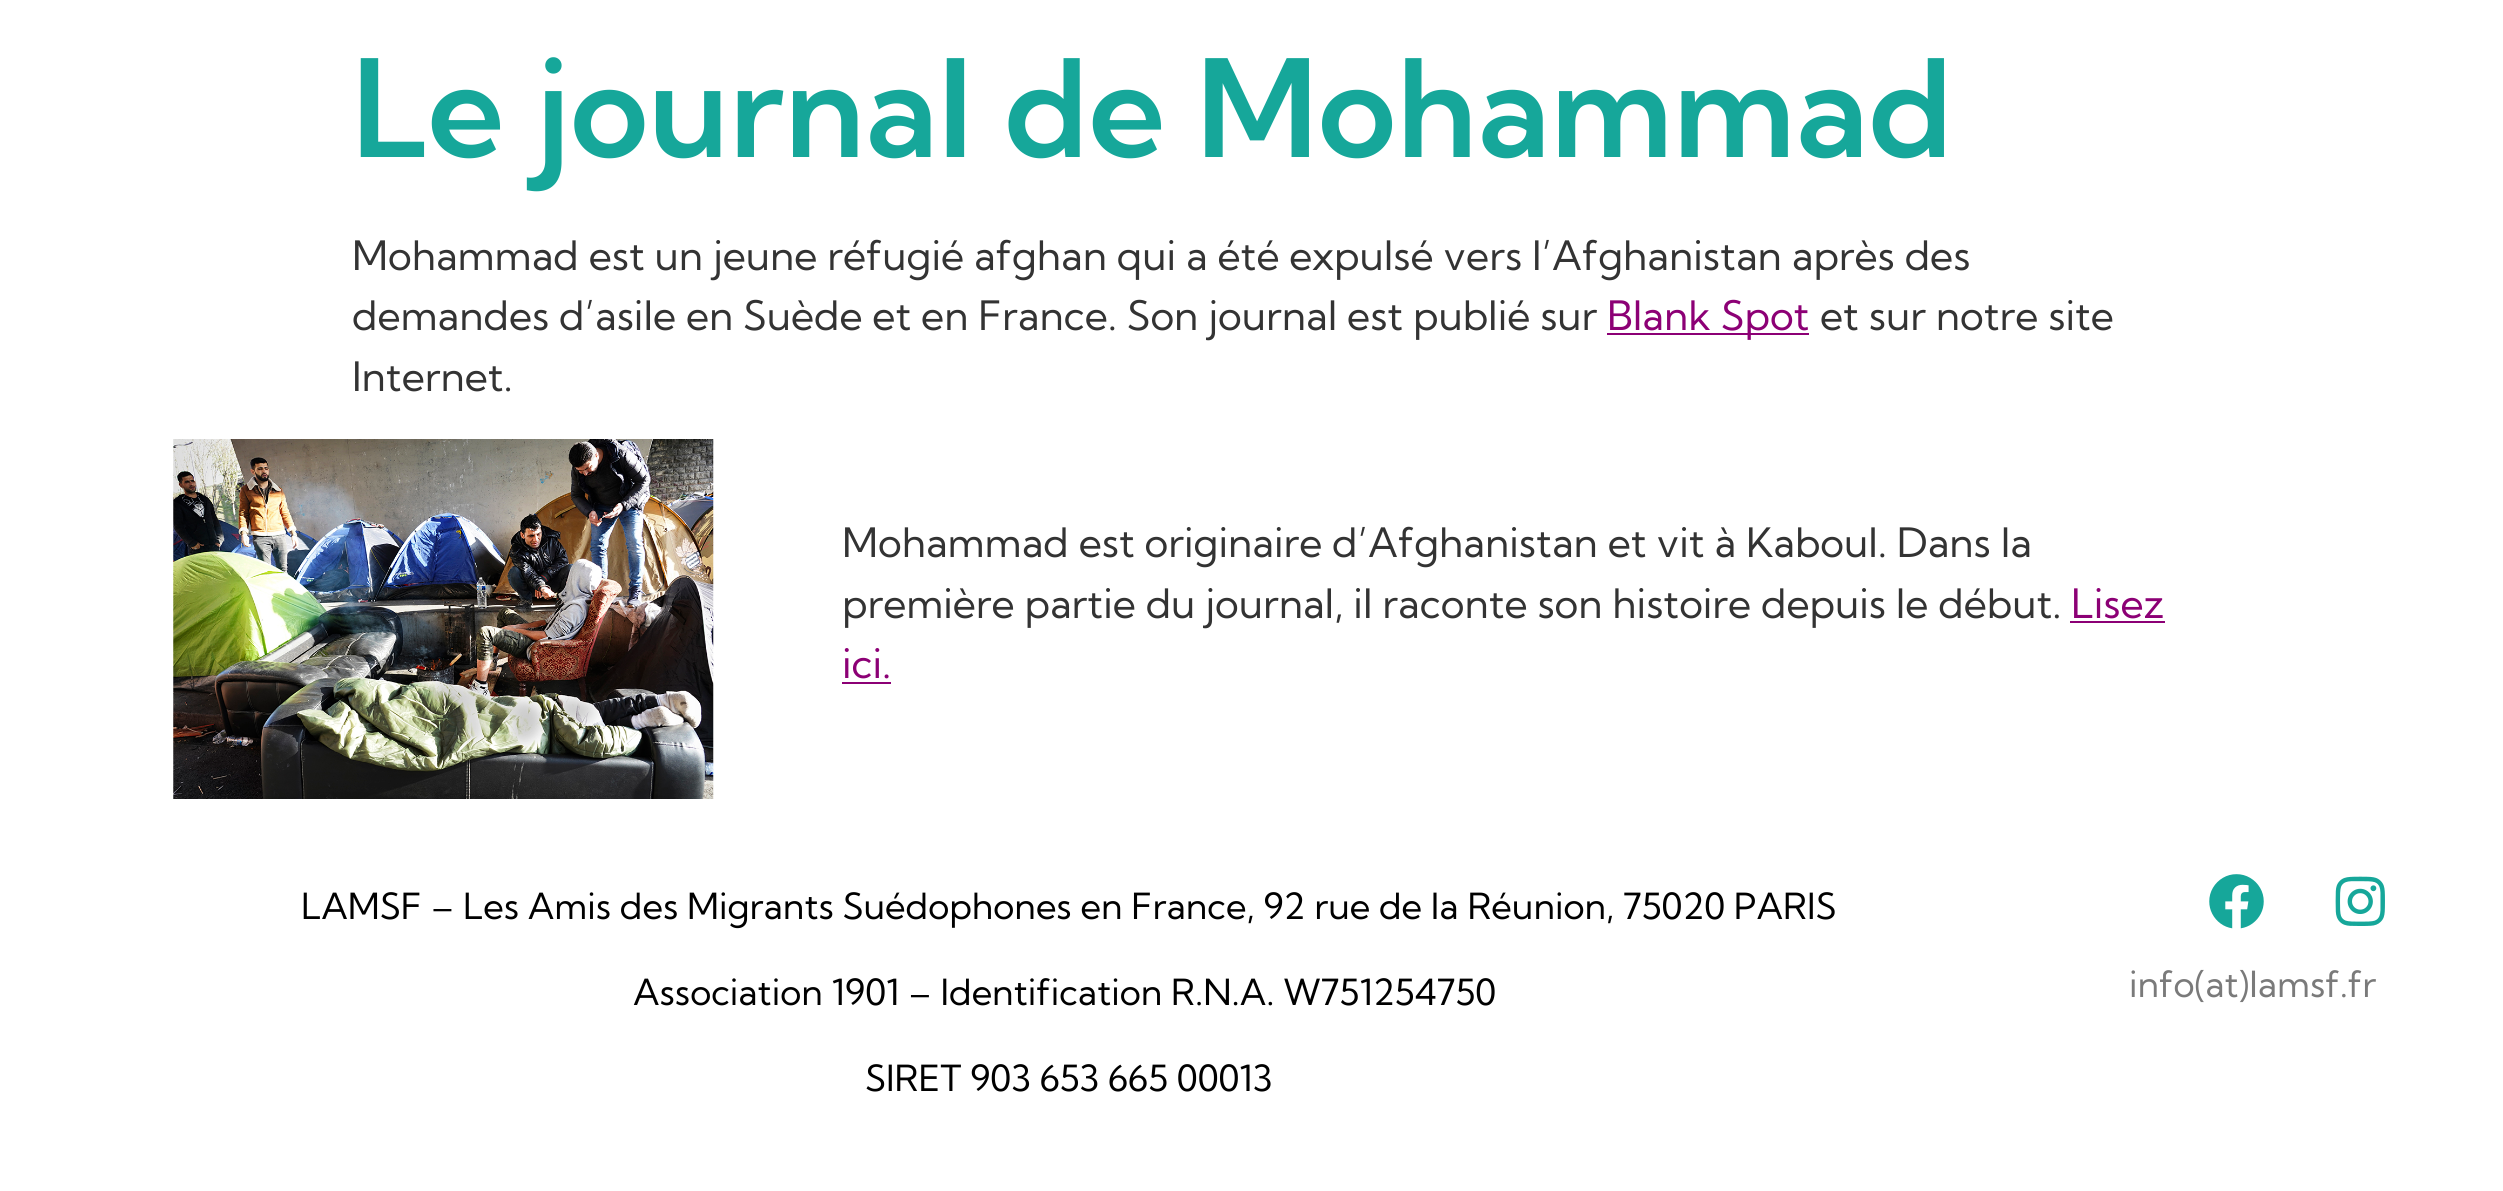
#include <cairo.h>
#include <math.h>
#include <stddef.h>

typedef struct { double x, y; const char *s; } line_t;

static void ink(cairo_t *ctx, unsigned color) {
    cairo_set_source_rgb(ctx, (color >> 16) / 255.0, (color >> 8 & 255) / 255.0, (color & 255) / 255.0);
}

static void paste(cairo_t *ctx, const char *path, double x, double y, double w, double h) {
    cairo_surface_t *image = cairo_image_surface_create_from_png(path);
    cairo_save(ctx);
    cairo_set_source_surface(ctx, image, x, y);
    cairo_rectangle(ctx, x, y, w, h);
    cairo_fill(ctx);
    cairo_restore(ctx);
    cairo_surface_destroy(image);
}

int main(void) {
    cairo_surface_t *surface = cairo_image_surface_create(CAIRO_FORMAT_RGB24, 2503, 1191);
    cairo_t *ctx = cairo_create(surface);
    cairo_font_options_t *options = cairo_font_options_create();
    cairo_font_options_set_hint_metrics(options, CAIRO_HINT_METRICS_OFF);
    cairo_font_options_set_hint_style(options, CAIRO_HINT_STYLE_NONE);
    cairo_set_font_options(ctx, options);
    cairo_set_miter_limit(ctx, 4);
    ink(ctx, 0xFFFFFF);
    cairo_paint(ctx);
    cairo_select_font_face(ctx, "Kumbh Sans SemiBold", CAIRO_FONT_SLANT_NORMAL, CAIRO_FONT_WEIGHT_NORMAL);
    cairo_set_font_size(ctx, 135);
    ink(ctx, 0x16A79A);
    cairo_move_to(ctx, 352, 157);
    cairo_show_text(ctx, "Le journal de Mohammad");
    cairo_select_font_face(ctx, "Kumbh Sans", CAIRO_FONT_SLANT_NORMAL, CAIRO_FONT_WEIGHT_NORMAL);
    cairo_set_font_size(ctx, 40.5);
    ink(ctx, 0x333333);
    cairo_move_to(ctx, 352, 270);
    cairo_show_text(ctx, "Mohammad est un jeune réfugié afghan qui a été expulsé vers l’Afghanistan après des");
    cairo_move_to(ctx, 352, 330);
    cairo_show_text(ctx, "demandes d’asile en Suède et en France. Son journal est publié sur");
    ink(ctx, 0x8C0075);
    cairo_rectangle(ctx, 1607, 333, 202, 2);
    cairo_fill(ctx);
    cairo_move_to(ctx, 1607, 330);
    cairo_show_text(ctx, "Blank Spot");
    ink(ctx, 0x333333);
    cairo_move_to(ctx, 1820, 330);
    cairo_show_text(ctx, "et sur notre site");
    cairo_move_to(ctx, 352, 391);
    cairo_show_text(ctx, "Internet.");
    paste(ctx, "media/1.png", 173, 439, 541, 360);
    cairo_move_to(ctx, 842, 557);
    cairo_show_text(ctx, "Mohammad est originaire d’Afghanistan et vit à Kaboul. Dans la");
    cairo_move_to(ctx, 842, 618);
    cairo_show_text(ctx, "première partie du journal, il raconte son histoire depuis le début.");
    ink(ctx, 0x8C0075);
    cairo_move_to(ctx, 2071, 618);
    cairo_show_text(ctx, "Lisez");
    cairo_rectangle(ctx, 2070, 621, 95, 2);
    cairo_fill(ctx);
    cairo_move_to(ctx, 842, 678);
    cairo_show_text(ctx, "ici.");
    cairo_rectangle(ctx, 842, 682, 49, 2);
    cairo_fill(ctx);
    cairo_set_font_size(ctx, 36);
    ink(ctx, 0x000000);
    {
        static const line_t items[] = {
            {301, 919, "LAMSF – Les Amis des Migrants Suédophones en France, 92 rue de la Réunion, 75020 PARIS"},
            {633, 1005, "Association 1901 – Identification R.N.A. W751254750"},
            {865, 1091, "SIRET 903 653 665 00013"},
        };
        for (size_t i = 0; i < sizeof items / sizeof *items; i++) {
            cairo_move_to(ctx, items[i].x, items[i].y);
            cairo_show_text(ctx, items[i].s);
        }
    }
    paste(ctx, "media/2.png", 2209, 874, 55, 55);
    paste(ctx, "media/3.png", 2335, 876, 50, 50);
    ink(ctx, 0x7A7A7A);
    cairo_move_to(ctx, 2129, 997);
    cairo_show_text(ctx, "info(at)lamsf.fr");
    cairo_surface_write_to_png(surface, "image.png");
    cairo_font_options_destroy(options);
    cairo_destroy(ctx);
    cairo_surface_destroy(surface);
    return 0;
}
